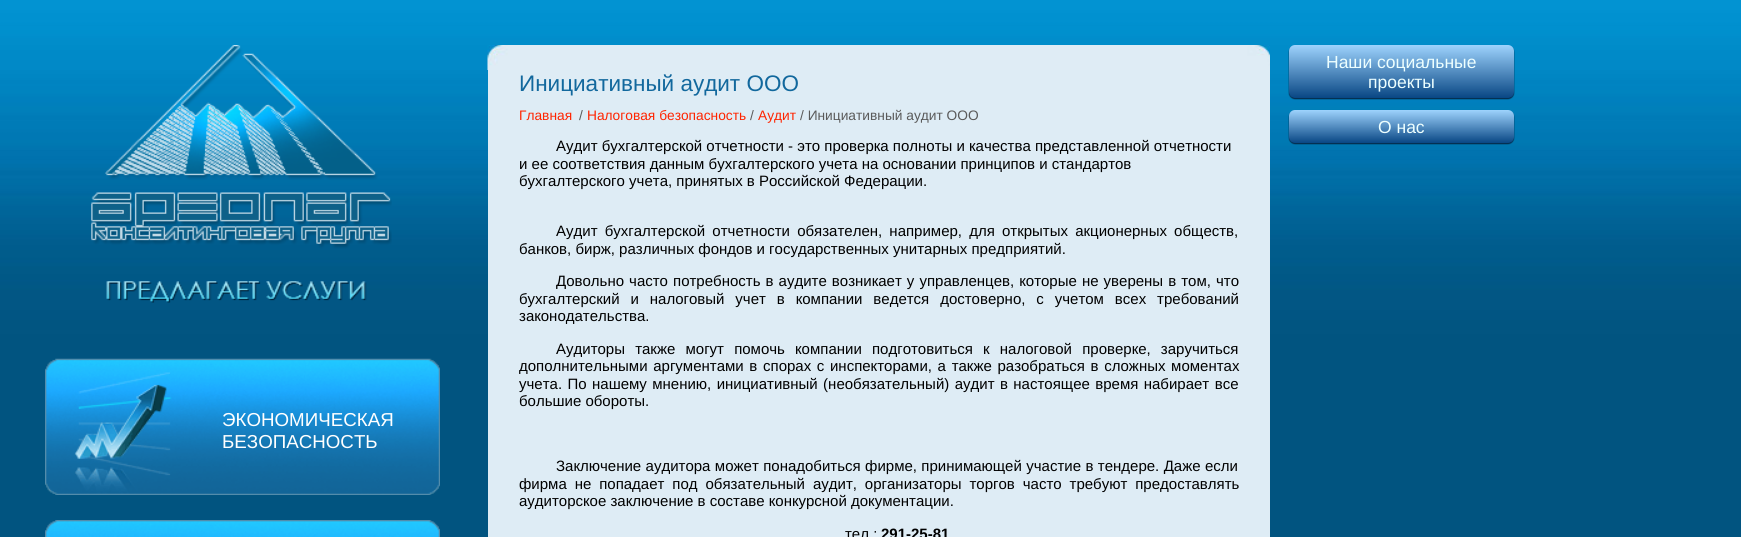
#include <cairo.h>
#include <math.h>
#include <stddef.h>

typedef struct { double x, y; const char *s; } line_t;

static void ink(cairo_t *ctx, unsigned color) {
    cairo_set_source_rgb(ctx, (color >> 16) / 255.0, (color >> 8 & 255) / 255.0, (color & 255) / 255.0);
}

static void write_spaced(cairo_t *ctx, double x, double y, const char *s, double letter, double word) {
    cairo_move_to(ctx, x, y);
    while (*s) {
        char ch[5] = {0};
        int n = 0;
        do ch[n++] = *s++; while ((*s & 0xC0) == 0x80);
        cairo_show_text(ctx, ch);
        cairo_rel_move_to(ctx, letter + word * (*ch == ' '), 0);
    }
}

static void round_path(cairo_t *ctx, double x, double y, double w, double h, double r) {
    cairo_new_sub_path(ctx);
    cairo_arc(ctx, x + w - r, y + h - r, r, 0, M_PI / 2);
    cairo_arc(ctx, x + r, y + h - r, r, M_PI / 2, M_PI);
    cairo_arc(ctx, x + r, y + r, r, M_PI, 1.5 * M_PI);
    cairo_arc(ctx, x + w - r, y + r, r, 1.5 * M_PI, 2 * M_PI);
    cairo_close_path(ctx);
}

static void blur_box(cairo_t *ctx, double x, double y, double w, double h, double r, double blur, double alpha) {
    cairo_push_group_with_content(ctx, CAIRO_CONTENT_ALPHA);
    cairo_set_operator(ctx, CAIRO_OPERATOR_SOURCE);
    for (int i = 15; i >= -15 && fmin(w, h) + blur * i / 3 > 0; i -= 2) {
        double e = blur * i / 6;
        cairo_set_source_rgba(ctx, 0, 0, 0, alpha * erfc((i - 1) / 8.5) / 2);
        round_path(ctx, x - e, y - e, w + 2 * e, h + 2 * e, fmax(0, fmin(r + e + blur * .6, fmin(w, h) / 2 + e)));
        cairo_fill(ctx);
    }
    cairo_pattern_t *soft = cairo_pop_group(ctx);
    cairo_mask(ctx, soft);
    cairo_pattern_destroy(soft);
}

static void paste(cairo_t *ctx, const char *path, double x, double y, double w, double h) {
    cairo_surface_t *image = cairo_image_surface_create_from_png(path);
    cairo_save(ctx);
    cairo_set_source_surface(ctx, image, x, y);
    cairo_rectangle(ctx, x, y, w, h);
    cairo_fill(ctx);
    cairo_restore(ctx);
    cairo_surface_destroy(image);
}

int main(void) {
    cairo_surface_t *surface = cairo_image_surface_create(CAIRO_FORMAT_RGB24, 1741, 537);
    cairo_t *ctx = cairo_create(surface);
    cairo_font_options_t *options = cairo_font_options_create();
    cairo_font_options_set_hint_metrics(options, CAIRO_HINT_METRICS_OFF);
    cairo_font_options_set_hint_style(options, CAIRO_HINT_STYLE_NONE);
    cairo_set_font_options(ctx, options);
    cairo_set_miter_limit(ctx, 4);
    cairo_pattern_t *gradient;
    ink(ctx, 0xFFFFFF);
    cairo_paint(ctx);
    paste(ctx, "media/1.png", 0, 0, 1741, 537);
    paste(ctx, "media/2.png", 91, 45, 301, 258);
    paste(ctx, "media/3.png", 45, 358, 395, 137);
    cairo_select_font_face(ctx, "Liberation Sans", CAIRO_FONT_SLANT_NORMAL, CAIRO_FONT_WEIGHT_NORMAL);
    cairo_set_font_size(ctx, 18.75);
    ink(ctx, 0xFFFFFF);
    cairo_move_to(ctx, 222, 426);
    cairo_show_text(ctx, "ЭКОНОМИЧЕСКАЯ");
    cairo_move_to(ctx, 222, 448);
    cairo_show_text(ctx, "БЕЗОПАСНОСТЬ");
    paste(ctx, "media/4.png", 45, 520, 395, 17);
    ink(ctx, 0xDEECF5);
    cairo_rectangle(ctx, 488, 70, 782, 467);
    cairo_fill(ctx);
    paste(ctx, "media/5.png", 487, 45, 783, 25);
    cairo_set_font_size(ctx, 22.5);
    ink(ctx, 0x12689D);
    cairo_move_to(ctx, 519, 91);
    cairo_show_text(ctx, "Инициативный аудит ООО");
    cairo_set_font_size(ctx, 13.75);
    ink(ctx, 0xFF2400);
    cairo_move_to(ctx, 519, 120);
    cairo_show_text(ctx, "Главная");
    ink(ctx, 0x5A5A5A);
    cairo_move_to(ctx, 579, 120);
    cairo_show_text(ctx, "/");
    ink(ctx, 0xFF2400);
    cairo_move_to(ctx, 587, 120);
    cairo_show_text(ctx, "Налоговая безопасность");
    ink(ctx, 0x5A5A5A);
    cairo_move_to(ctx, 750, 120);
    cairo_show_text(ctx, "/");
    ink(ctx, 0xFF2400);
    cairo_move_to(ctx, 758, 120);
    cairo_show_text(ctx, "Аудит");
    ink(ctx, 0x5A5A5A);
    cairo_move_to(ctx, 800, 120);
    cairo_show_text(ctx, "/ Инициативный аудит ООО");
    cairo_set_font_size(ctx, 15);
    ink(ctx, 0x000000);
    {
        static const line_t items[] = {
            {556, 151, "Аудит бухгалтерской отчетности - это проверка полноты и качества представленной отчетности"},
            {519, 169, "и ее соответствия данным бухгалтерского учета на основании принципов и стандартов"},
            {519, 186, "бухгалтерского учета, принятых в Российской Федерации."},
        };
        for (size_t i = 0; i < sizeof items / sizeof *items; i++) {
            cairo_move_to(ctx, items[i].x, items[i].y);
            cairo_show_text(ctx, items[i].s);
        }
    }
    write_spaced(ctx, 556, 236, "Аудит бухгалтерской отчетности обязателен, например, для открытых акционерных обществ,", 0, 3);
    cairo_move_to(ctx, 519, 254);
    cairo_show_text(ctx, "банков, бирж, различных фондов и государственных унитарных предприятий.");
    write_spaced(ctx, 556, 286, "Довольно часто потребность в аудите возникает у управленцев, которые не уверены в том, что", 0, 0.9);
    write_spaced(ctx, 519, 304, "бухгалтерский и налоговый учет в компании ведется достоверно, с учетом всех требований", 0, 6.75);
    cairo_move_to(ctx, 519, 321);
    cairo_show_text(ctx, "законодательства.");
    write_spaced(ctx, 556, 354, "Аудиторы также могут помочь компании подготовиться к налоговой проверке, заручиться", 0, 6);
    write_spaced(ctx, 519, 371, "дополнительными аргументами в спорах с инспекторами, а также разобраться в сложных моментах", 0, 1.5);
    write_spaced(ctx, 519, 389, "учета. По нашему мнению, инициативный (необязательный) аудит в настоящее время набирает все", 0, 1.25);
    cairo_move_to(ctx, 519, 406);
    cairo_show_text(ctx, "большие обороты.");
    write_spaced(ctx, 556, 471, "Заключение аудитора может понадобиться фирме, принимающей участие в тендере. Даже если", 0, 0.25);
    write_spaced(ctx, 519, 489, "фирма не попадает под обязательный аудит, организаторы торгов часто требуют предоставлять", 0, 3.75);
    cairo_move_to(ctx, 519, 506);
    cairo_show_text(ctx, "аудиторское заключение в составе конкурсной документации.");
    cairo_move_to(ctx, 845, 539);
    cairo_show_text(ctx, "тел.:");
    cairo_select_font_face(ctx, "Liberation Sans", CAIRO_FONT_SLANT_NORMAL, CAIRO_FONT_WEIGHT_BOLD);
    cairo_move_to(ctx, 881, 539);
    cairo_show_text(ctx, "291-25-81");
    ink(ctx, 0x042544);
    blur_box(ctx, 1289, 46, 225, 53, 6, 0.5, 1);
    gradient = cairo_pattern_create_linear(1401, 45, 1401, 98);
    cairo_pattern_add_color_stop_rgba(gradient, 0, 0.62, 0.827, 0.992, 1);
    cairo_pattern_add_color_stop_rgba(gradient, 1, 0.035, 0.278, 0.518, 1);
    cairo_set_source(ctx, gradient);
    cairo_pattern_destroy(gradient);
    round_path(ctx, 1289, 45, 225, 53, 6);
    cairo_fill(ctx);
    cairo_select_font_face(ctx, "Liberation Sans", CAIRO_FONT_SLANT_NORMAL, CAIRO_FONT_WEIGHT_NORMAL);
    cairo_set_font_size(ctx, 17.5);
    ink(ctx, 0xEDFFFF);
    cairo_move_to(ctx, 1326, 68);
    cairo_show_text(ctx, "Наши социальные");
    cairo_move_to(ctx, 1368, 88);
    cairo_show_text(ctx, "проекты");
    ink(ctx, 0x042544);
    blur_box(ctx, 1289, 111, 225, 33, 6, 0.5, 1);
    gradient = cairo_pattern_create_linear(1401, 110, 1401, 143);
    cairo_pattern_add_color_stop_rgba(gradient, 0, 0.62, 0.827, 0.992, 1);
    cairo_pattern_add_color_stop_rgba(gradient, 1, 0.035, 0.278, 0.518, 1);
    cairo_set_source(ctx, gradient);
    cairo_pattern_destroy(gradient);
    round_path(ctx, 1289, 110, 225, 33, 6);
    cairo_fill(ctx);
    ink(ctx, 0xEDFFFF);
    cairo_move_to(ctx, 1378, 133);
    cairo_show_text(ctx, "О нас");
    cairo_surface_write_to_png(surface, "image.png");
    cairo_font_options_destroy(options);
    cairo_destroy(ctx);
    cairo_surface_destroy(surface);
    return 0;
}
